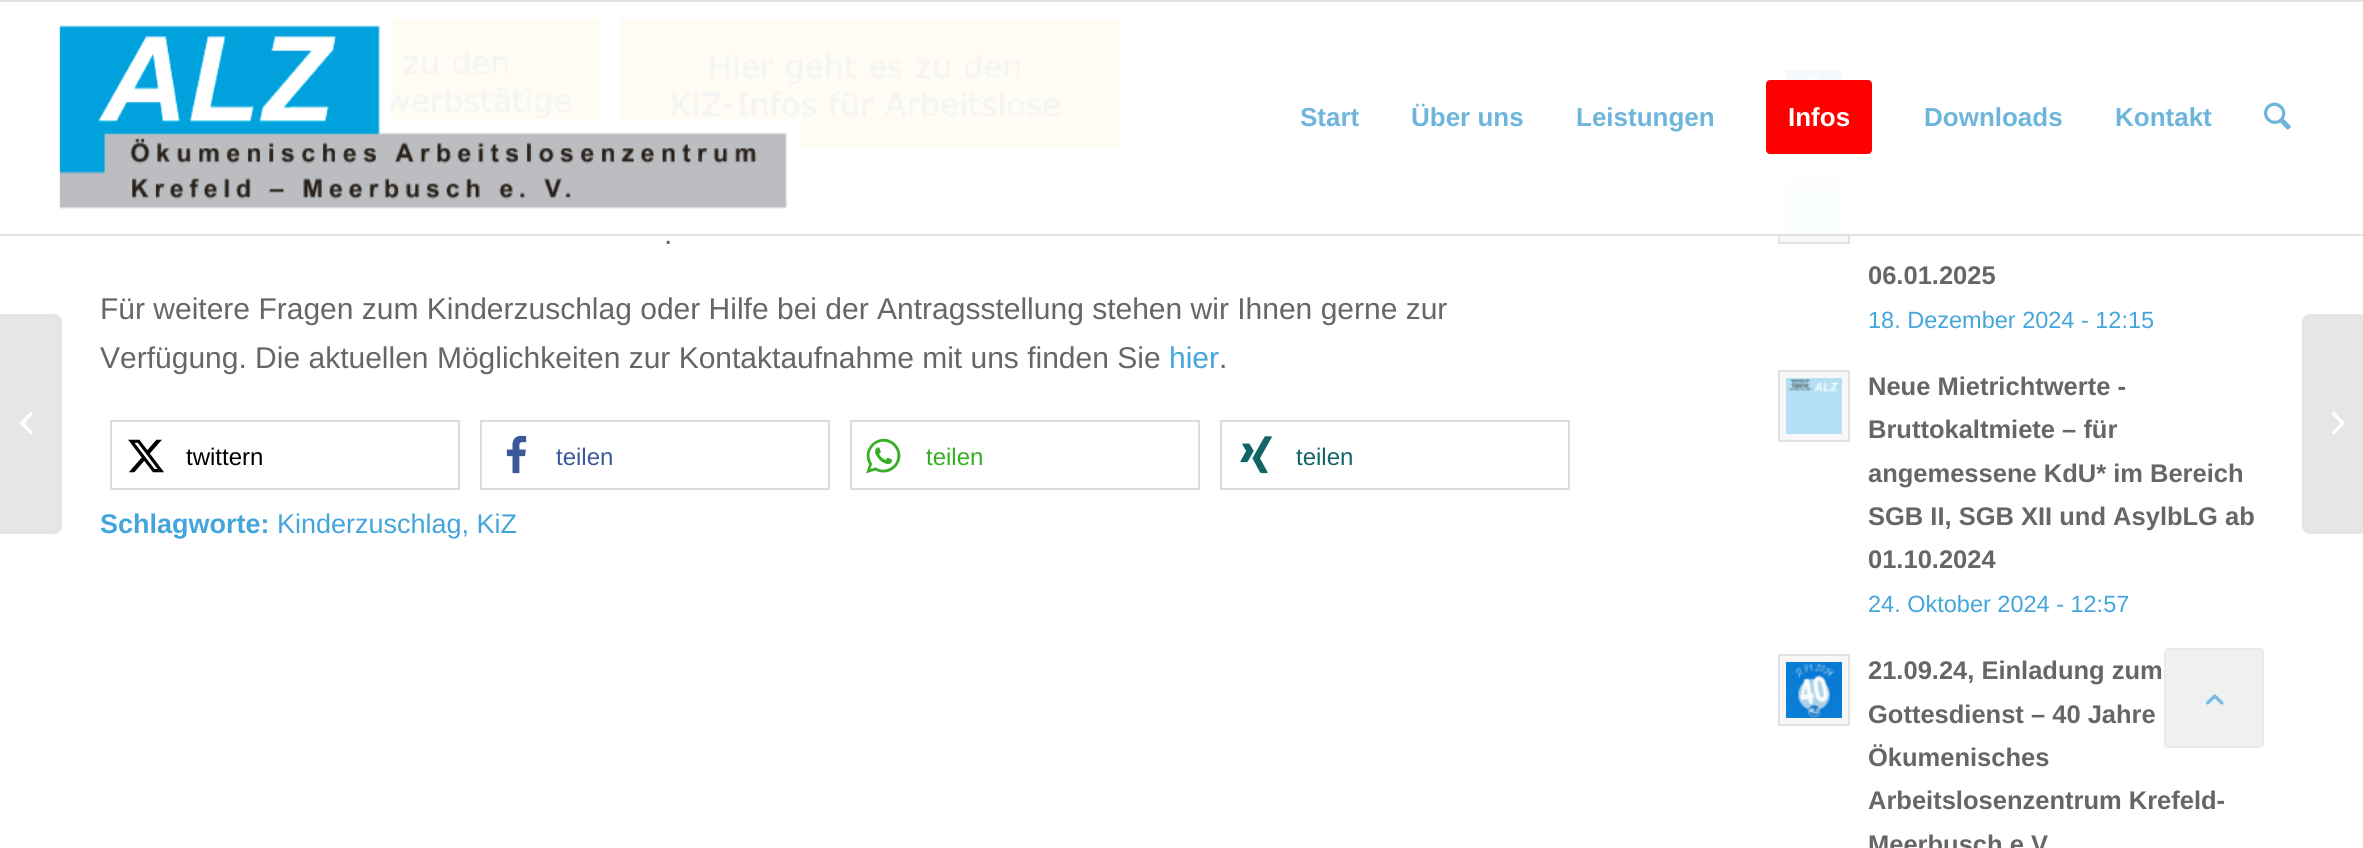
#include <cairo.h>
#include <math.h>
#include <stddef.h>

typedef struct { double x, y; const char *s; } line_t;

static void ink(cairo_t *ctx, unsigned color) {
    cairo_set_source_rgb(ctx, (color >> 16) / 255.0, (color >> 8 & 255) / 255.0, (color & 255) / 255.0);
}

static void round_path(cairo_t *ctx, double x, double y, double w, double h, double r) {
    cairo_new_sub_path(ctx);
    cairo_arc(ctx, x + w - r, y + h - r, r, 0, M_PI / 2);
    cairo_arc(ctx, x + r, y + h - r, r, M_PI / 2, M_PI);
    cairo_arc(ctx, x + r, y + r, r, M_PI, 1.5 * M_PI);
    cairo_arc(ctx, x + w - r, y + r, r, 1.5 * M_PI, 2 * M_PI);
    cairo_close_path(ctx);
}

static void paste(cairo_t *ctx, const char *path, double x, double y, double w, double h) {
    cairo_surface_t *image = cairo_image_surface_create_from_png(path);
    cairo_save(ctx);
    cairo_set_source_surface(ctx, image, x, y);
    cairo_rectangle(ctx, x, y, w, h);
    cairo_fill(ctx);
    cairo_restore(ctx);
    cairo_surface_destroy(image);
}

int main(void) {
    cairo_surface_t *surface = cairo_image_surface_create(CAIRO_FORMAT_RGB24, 2363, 848);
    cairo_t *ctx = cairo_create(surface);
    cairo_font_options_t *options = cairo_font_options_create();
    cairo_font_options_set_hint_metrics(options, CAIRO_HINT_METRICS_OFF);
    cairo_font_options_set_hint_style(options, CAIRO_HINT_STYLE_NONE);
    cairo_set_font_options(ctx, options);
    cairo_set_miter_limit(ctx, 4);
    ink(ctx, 0xFFFFFF);
    cairo_paint(ctx);
    paste(ctx, "media/4.png", 386, 18, 214, 104);
    paste(ctx, "media/5.png", 620, 18, 500, 130);
    ink(ctx, 0xF8F8F8);
    cairo_rectangle(ctx, 1780, 64, 68, 16);
    cairo_fill(ctx);
    cairo_rectangle(ctx, 1779, 63, 70, 70);
    ink(ctx, 0xE1E1E1);
    cairo_stroke(ctx);
    paste(ctx, "media/10.png", 1786, 70, 56, 10);
    ink(ctx, 0xF8F8F8);
    cairo_rectangle(ctx, 1779, 173, 70, 70);
    cairo_fill_preserve(ctx);
    ink(ctx, 0xE1E1E1);
    cairo_stroke(ctx);
    paste(ctx, "media/11.png", 1786, 180, 56, 54);
    cairo_set_source_rgba(ctx, 1, 1, 1, 0.95);
    cairo_rectangle(ctx, 386, 18, 1464, 216);
    cairo_fill(ctx);
    ink(ctx, 0xE1E1E1);
    cairo_rectangle(ctx, 0, 0, 2363, 2);
    cairo_fill(ctx);
    cairo_rectangle(ctx, 0, 234, 2363, 2);
    cairo_fill(ctx);
    paste(ctx, "media/1.png", 59, 18, 741, 191);
    cairo_select_font_face(ctx, "Liberation Sans", CAIRO_FONT_SLANT_NORMAL, CAIRO_FONT_WEIGHT_BOLD);
    cairo_set_font_size(ctx, 26);
    ink(ctx, 0x6DB5DB);
    {
        static const line_t items[] = {
            {1300, 126, "Start"},
            {1411, 126, "Über uns"},
            {1576, 126, "Leistungen"},
        };
        for (size_t i = 0; i < sizeof items / sizeof *items; i++) {
            cairo_move_to(ctx, items[i].x, items[i].y);
            cairo_show_text(ctx, items[i].s);
        }
    }
    ink(ctx, 0xFF0000);
    round_path(ctx, 1768, 82, 102, 70, 2);
    cairo_fill_preserve(ctx);
    cairo_set_line_width(ctx, 4);
    cairo_stroke(ctx);
    ink(ctx, 0xFFFFFF);
    cairo_move_to(ctx, 1788, 126);
    cairo_show_text(ctx, "Infos");
    ink(ctx, 0x6DB5DB);
    cairo_move_to(ctx, 1924, 126);
    cairo_show_text(ctx, "Downloads");
    cairo_move_to(ctx, 2115, 126);
    cairo_show_text(ctx, "Kontakt");
    paste(ctx, "media/2.png", 2264, 102, 27, 28);
    ink(ctx, 0xE6E6E6);
    cairo_new_path(ctx);
    cairo_move_to(ctx, 0, 314);
    cairo_line_to(ctx, 54, 314);
    cairo_curve_to(ctx, 58.5, 314, 62, 317.5, 62, 322);
    cairo_line_to(ctx, 62, 526);
    cairo_curve_to(ctx, 62, 530.5, 58.5, 534, 54, 534);
    cairo_line_to(ctx, 0, 534);
    cairo_close_path(ctx);
    cairo_fill(ctx);
    paste(ctx, "media/3.png", 20, 412, 13, 22);
    cairo_select_font_face(ctx, "Liberation Sans", CAIRO_FONT_SLANT_NORMAL, CAIRO_FONT_WEIGHT_NORMAL);
    cairo_set_font_size(ctx, 30);
    ink(ctx, 0x666666);
    {
        static const line_t items[] = {
            {664, 244, "."},
            {100, 319, "Für weitere Fragen zum Kinderzuschlag oder Hilfe bei der Antragsstellung stehen wir Ihnen gerne zur"},
            {100, 368, "Verfügung. Die aktuellen Möglichkeiten zur Kontaktaufnahme mit uns finden Sie"},
        };
        for (size_t i = 0; i < sizeof items / sizeof *items; i++) {
            cairo_move_to(ctx, items[i].x, items[i].y);
            cairo_show_text(ctx, items[i].s);
        }
    }
    ink(ctx, 0x44A5DD);
    cairo_move_to(ctx, 1169, 368);
    cairo_show_text(ctx, "hier");
    ink(ctx, 0x666666);
    cairo_move_to(ctx, 1219, 368);
    cairo_show_text(ctx, ".");
    cairo_rectangle(ctx, 111, 421, 348, 68);
    ink(ctx, 0xDDDDDD);
    cairo_set_line_width(ctx, 2);
    cairo_stroke(ctx);
    paste(ctx, "media/6.png", 128, 439, 36, 34);
    cairo_set_font_size(ctx, 24);
    ink(ctx, 0x000000);
    cairo_move_to(ctx, 186, 465);
    cairo_show_text(ctx, "twittern");
    cairo_rectangle(ctx, 481, 421, 348, 68);
    ink(ctx, 0xDDDDDD);
    cairo_stroke(ctx);
    paste(ctx, "media/7.png", 506, 435, 21, 39);
    ink(ctx, 0x3B5998);
    cairo_move_to(ctx, 556, 465);
    cairo_show_text(ctx, "teilen");
    cairo_rectangle(ctx, 851, 421, 348, 68);
    ink(ctx, 0xDDDDDD);
    cairo_stroke(ctx);
    paste(ctx, "media/8.png", 866, 438, 35, 36);
    ink(ctx, 0x34AF23);
    cairo_move_to(ctx, 926, 465);
    cairo_show_text(ctx, "teilen");
    cairo_rectangle(ctx, 1221, 421, 348, 68);
    ink(ctx, 0xDDDDDD);
    cairo_stroke(ctx);
    paste(ctx, "media/9.png", 1240, 436, 32, 38);
    ink(ctx, 0x126567);
    cairo_move_to(ctx, 1296, 465);
    cairo_show_text(ctx, "teilen");
    cairo_select_font_face(ctx, "Liberation Sans", CAIRO_FONT_SLANT_NORMAL, CAIRO_FONT_WEIGHT_BOLD);
    cairo_set_font_size(ctx, 27);
    ink(ctx, 0x44A5DD);
    cairo_move_to(ctx, 100, 533);
    cairo_show_text(ctx, "Schlagworte:");
    cairo_select_font_face(ctx, "Liberation Sans", CAIRO_FONT_SLANT_NORMAL, CAIRO_FONT_WEIGHT_NORMAL);
    cairo_move_to(ctx, 277, 533);
    cairo_show_text(ctx, "Kinderzuschlag, KiZ");
    cairo_select_font_face(ctx, "Liberation Sans", CAIRO_FONT_SLANT_NORMAL, CAIRO_FONT_WEIGHT_BOLD);
    cairo_set_font_size(ctx, 25.5);
    ink(ctx, 0x666666);
    cairo_move_to(ctx, 1868, 284);
    cairo_show_text(ctx, "06.01.2025");
    cairo_select_font_face(ctx, "Liberation Sans", CAIRO_FONT_SLANT_NORMAL, CAIRO_FONT_WEIGHT_NORMAL);
    cairo_set_font_size(ctx, 23.5);
    ink(ctx, 0x44A5DD);
    cairo_move_to(ctx, 1868, 328);
    cairo_show_text(ctx, "18. Dezember 2024 - 12:15");
    ink(ctx, 0xF8F8F8);
    cairo_rectangle(ctx, 1779, 371, 70, 70);
    cairo_fill_preserve(ctx);
    ink(ctx, 0xE1E1E1);
    cairo_stroke(ctx);
    paste(ctx, "media/12.png", 1786, 378, 56, 56);
    cairo_select_font_face(ctx, "Liberation Sans", CAIRO_FONT_SLANT_NORMAL, CAIRO_FONT_WEIGHT_BOLD);
    cairo_set_font_size(ctx, 25.5);
    ink(ctx, 0x666666);
    {
        static const line_t items[] = {
            {1868, 395, "Neue Mietrichtwerte -"},
            {1868, 438, "Bruttokaltmiete – für"},
            {1868, 482, "angemessene KdU* im Bereich"},
            {1868, 525, "SGB II, SGB XII und AsylbLG ab"},
            {1868, 568, "01.10.2024"},
        };
        for (size_t i = 0; i < sizeof items / sizeof *items; i++) {
            cairo_move_to(ctx, items[i].x, items[i].y);
            cairo_show_text(ctx, items[i].s);
        }
    }
    cairo_select_font_face(ctx, "Liberation Sans", CAIRO_FONT_SLANT_NORMAL, CAIRO_FONT_WEIGHT_NORMAL);
    cairo_set_font_size(ctx, 23.5);
    ink(ctx, 0x44A5DD);
    cairo_move_to(ctx, 1868, 612);
    cairo_show_text(ctx, "24. Oktober 2024 - 12:57");
    ink(ctx, 0xF8F8F8);
    cairo_rectangle(ctx, 1779, 655, 70, 70);
    cairo_fill_preserve(ctx);
    ink(ctx, 0xE1E1E1);
    cairo_stroke(ctx);
    paste(ctx, "media/13.png", 1786, 662, 56, 56);
    cairo_select_font_face(ctx, "Liberation Sans", CAIRO_FONT_SLANT_NORMAL, CAIRO_FONT_WEIGHT_BOLD);
    cairo_set_font_size(ctx, 25.5);
    ink(ctx, 0x666666);
    {
        static const line_t items[] = {
            {1868, 679, "21.09.24, Einladung zum"},
            {1868, 723, "Gottesdienst – 40 Jahre"},
            {1868, 766, "Ökumenisches"},
            {1868, 809, "Arbeitslosenzentrum Krefeld-"},
            {1868, 853, "Meerbusch e.V"},
        };
        for (size_t i = 0; i < sizeof items / sizeof *items; i++) {
            cairo_move_to(ctx, items[i].x, items[i].y);
            cairo_show_text(ctx, items[i].s);
        }
    }
    ink(ctx, 0xE6E6E6);
    cairo_new_path(ctx);
    cairo_move_to(ctx, 2310, 314);
    cairo_line_to(ctx, 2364, 314);
    cairo_line_to(ctx, 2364, 534);
    cairo_line_to(ctx, 2310, 534);
    cairo_curve_to(ctx, 2305.5, 534, 2302, 530.5, 2302, 526);
    cairo_line_to(ctx, 2302, 322);
    cairo_curve_to(ctx, 2302, 317.5, 2305.5, 314, 2310, 314);
    cairo_close_path(ctx);
    cairo_fill(ctx);
    paste(ctx, "media/14.png", 2332, 412, 13, 23);
    ink(ctx, 0xF0F0F0);
    round_path(ctx, 2165, 649, 98, 98, 3);
    cairo_fill_preserve(ctx);
    ink(ctx, 0xEAEAEA);
    cairo_stroke(ctx);
    paste(ctx, "media/15.png", 2206, 694, 18, 11);
    cairo_surface_write_to_png(surface, "image.png");
    cairo_font_options_destroy(options);
    cairo_destroy(ctx);
    cairo_surface_destroy(surface);
    return 0;
}
